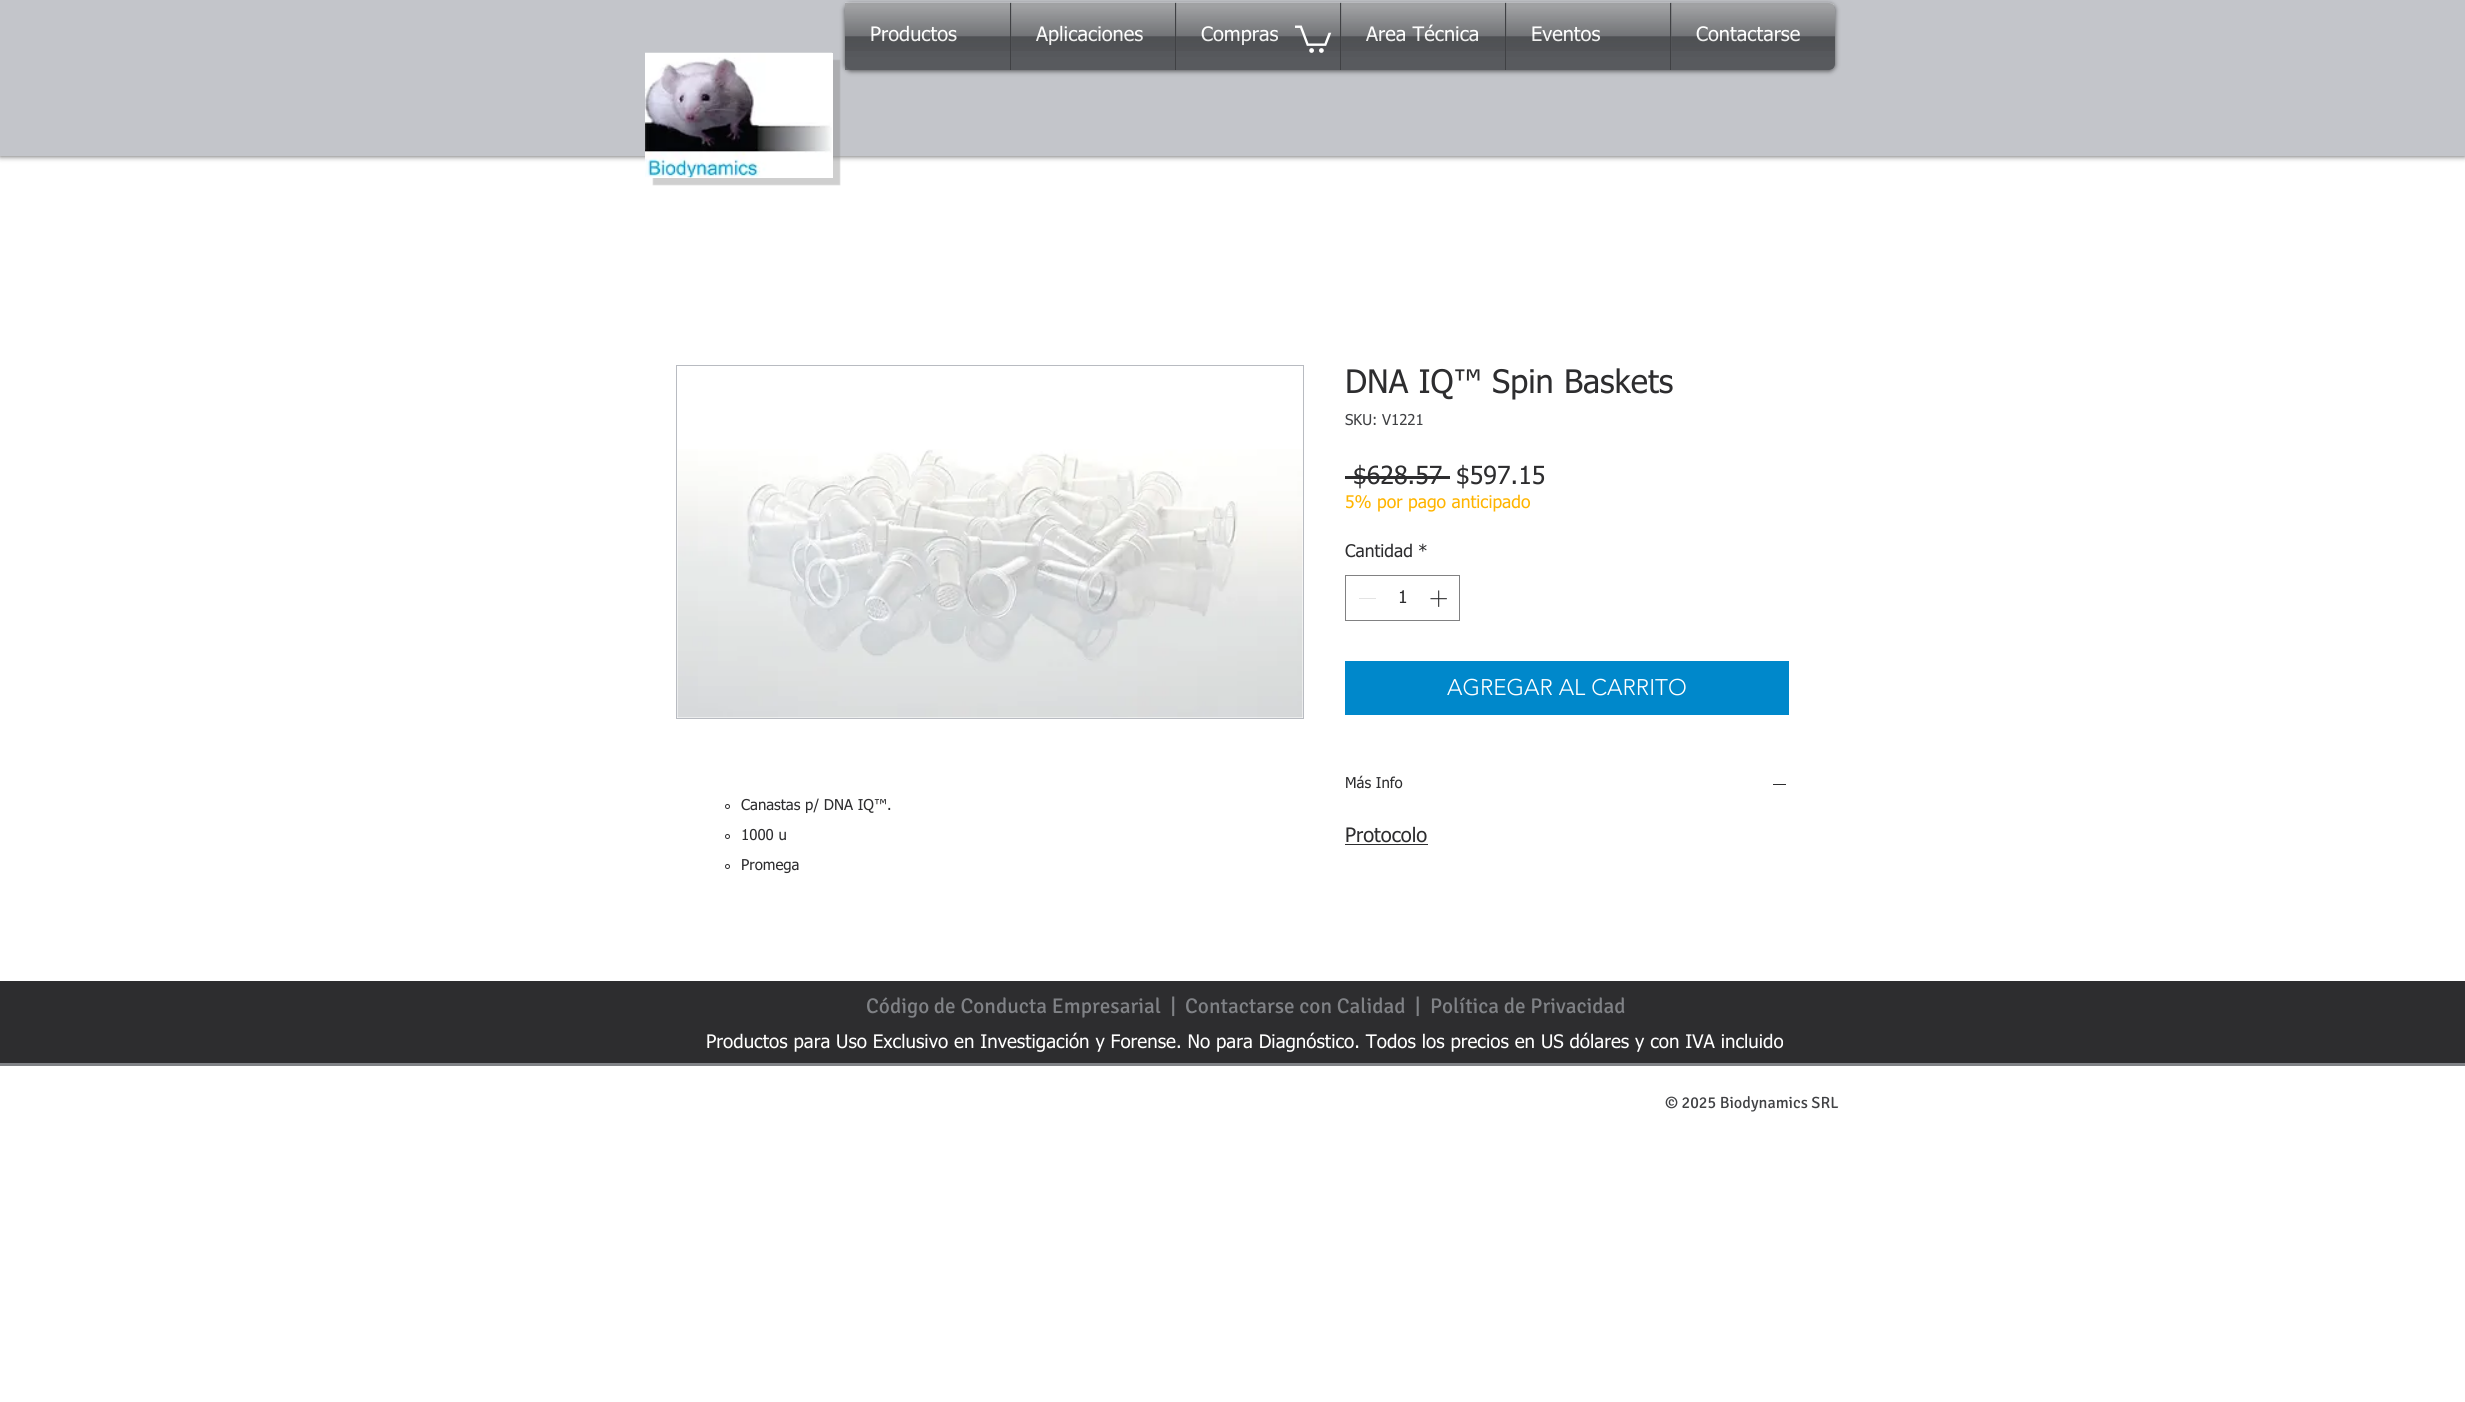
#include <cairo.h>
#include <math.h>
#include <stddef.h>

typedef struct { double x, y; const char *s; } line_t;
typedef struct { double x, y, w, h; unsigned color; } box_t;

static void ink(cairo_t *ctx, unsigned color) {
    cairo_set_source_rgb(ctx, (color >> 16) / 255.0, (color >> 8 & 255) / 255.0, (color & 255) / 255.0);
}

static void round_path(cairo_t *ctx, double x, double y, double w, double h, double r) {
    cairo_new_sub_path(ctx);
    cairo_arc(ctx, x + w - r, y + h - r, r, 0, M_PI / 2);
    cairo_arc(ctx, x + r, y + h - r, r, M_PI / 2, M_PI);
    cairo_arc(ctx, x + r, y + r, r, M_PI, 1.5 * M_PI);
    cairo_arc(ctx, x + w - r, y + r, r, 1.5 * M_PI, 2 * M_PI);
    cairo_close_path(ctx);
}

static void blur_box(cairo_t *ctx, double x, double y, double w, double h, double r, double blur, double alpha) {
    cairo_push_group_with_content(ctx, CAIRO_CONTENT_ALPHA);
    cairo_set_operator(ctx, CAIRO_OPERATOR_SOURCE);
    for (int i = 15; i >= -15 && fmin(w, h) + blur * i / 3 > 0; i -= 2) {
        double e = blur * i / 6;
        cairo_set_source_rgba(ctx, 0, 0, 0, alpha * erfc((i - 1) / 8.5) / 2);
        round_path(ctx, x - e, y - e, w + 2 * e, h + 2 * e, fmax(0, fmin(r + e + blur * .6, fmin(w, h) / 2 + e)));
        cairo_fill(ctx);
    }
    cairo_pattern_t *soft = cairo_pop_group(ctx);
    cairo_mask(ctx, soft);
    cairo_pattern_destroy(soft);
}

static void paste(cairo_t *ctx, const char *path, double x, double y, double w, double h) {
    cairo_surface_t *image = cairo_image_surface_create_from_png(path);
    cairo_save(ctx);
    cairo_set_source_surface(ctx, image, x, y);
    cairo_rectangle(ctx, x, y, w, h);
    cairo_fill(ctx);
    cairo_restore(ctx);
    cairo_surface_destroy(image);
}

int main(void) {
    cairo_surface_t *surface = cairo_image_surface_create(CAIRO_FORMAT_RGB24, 2465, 1402);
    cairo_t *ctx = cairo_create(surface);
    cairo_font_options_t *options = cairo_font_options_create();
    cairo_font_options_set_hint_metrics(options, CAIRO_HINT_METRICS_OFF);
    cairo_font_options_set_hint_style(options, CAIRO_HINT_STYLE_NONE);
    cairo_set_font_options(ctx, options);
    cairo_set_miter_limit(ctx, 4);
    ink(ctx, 0xFFFFFF);
    cairo_paint(ctx);
    ink(ctx, 0x000000);
    blur_box(ctx, 0, 0, 2465, 156, 0, 3, 0.7);
    ink(ctx, 0xC3C5CA);
    cairo_rectangle(ctx, 0, 0, 2465, 156);
    cairo_fill(ctx);
    cairo_save(ctx);
    cairo_set_fill_rule(ctx, CAIRO_FILL_RULE_EVEN_ODD);
    cairo_new_path(ctx);
    cairo_move_to(ctx, 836, 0);
    cairo_line_to(ctx, 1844, 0);
    cairo_line_to(ctx, 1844, 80);
    cairo_line_to(ctx, 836, 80);
    cairo_close_path(ctx);
    cairo_move_to(ctx, 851, 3);
    cairo_line_to(ctx, 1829, 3);
    cairo_curve_to(ctx, 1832.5, 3, 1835, 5.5, 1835, 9);
    cairo_line_to(ctx, 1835, 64);
    cairo_curve_to(ctx, 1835, 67.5, 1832.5, 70, 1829, 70);
    cairo_line_to(ctx, 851, 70);
    cairo_curve_to(ctx, 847.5, 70, 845, 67.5, 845, 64);
    cairo_line_to(ctx, 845, 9);
    cairo_curve_to(ctx, 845, 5.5, 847.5, 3, 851, 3);
    cairo_close_path(ctx);
    cairo_clip(ctx);
    ink(ctx, 0x000000);
    blur_box(ctx, 845, 4, 990, 67, 6, 2.5, 0.6);
    cairo_restore(ctx);
    cairo_set_source_rgba(ctx, 0.251, 0.255, 0.267, 0.56);
    round_path(ctx, 845, 3, 990, 67, 6);
    cairo_fill(ctx);
    paste(ctx, "media/1.png", 845, 2, 990, 55);
    cairo_rectangle(ctx, 845, 3, 165, 67);
    cairo_fill(ctx);
    cairo_select_font_face(ctx, "tahoma", CAIRO_FONT_SLANT_NORMAL, CAIRO_FONT_WEIGHT_NORMAL);
    cairo_set_font_size(ctx, 20);
    ink(ctx, 0xFFFFFF);
    cairo_move_to(ctx, 870, 41);
    cairo_show_text(ctx, "Productos");
    paste(ctx, "media/2.png", 845, 2, 165, 49);
    cairo_set_source_rgba(ctx, 0.251, 0.255, 0.267, 0.56);
    cairo_rectangle(ctx, 1011, 3, 164, 67);
    cairo_fill(ctx);
    ink(ctx, 0x404144);
    cairo_rectangle(ctx, 1010, 3, 1, 67);
    cairo_fill(ctx);
    ink(ctx, 0xFFFFFF);
    cairo_move_to(ctx, 1036, 41);
    cairo_show_text(ctx, "Aplicaciones");
    paste(ctx, "media/3.png", 1011, 2, 164, 49);
    cairo_set_source_rgba(ctx, 0.251, 0.255, 0.267, 0.56);
    cairo_rectangle(ctx, 1176, 3, 164, 67);
    cairo_fill(ctx);
    ink(ctx, 0x404144);
    cairo_rectangle(ctx, 1175, 3, 1, 67);
    cairo_fill(ctx);
    ink(ctx, 0xFFFFFF);
    cairo_move_to(ctx, 1201, 41);
    cairo_show_text(ctx, "Compras");
    paste(ctx, "media/4.png", 1176, 2, 164, 49);
    cairo_set_source_rgba(ctx, 0.251, 0.255, 0.267, 0.56);
    cairo_rectangle(ctx, 1341, 3, 164, 67);
    cairo_fill(ctx);
    ink(ctx, 0x404144);
    cairo_rectangle(ctx, 1340, 3, 1, 67);
    cairo_fill(ctx);
    ink(ctx, 0xFFFFFF);
    cairo_move_to(ctx, 1366, 41);
    cairo_show_text(ctx, "Area Técnica");
    paste(ctx, "media/5.png", 1341, 2, 164, 49);
    cairo_set_source_rgba(ctx, 0.251, 0.255, 0.267, 0.56);
    cairo_rectangle(ctx, 1506, 3, 164, 67);
    cairo_fill(ctx);
    ink(ctx, 0x404144);
    cairo_rectangle(ctx, 1505, 3, 1, 67);
    cairo_fill(ctx);
    ink(ctx, 0xFFFFFF);
    cairo_move_to(ctx, 1531, 41);
    cairo_show_text(ctx, "Eventos");
    paste(ctx, "media/6.png", 1506, 2, 164, 49);
    cairo_set_source_rgba(ctx, 0.251, 0.255, 0.267, 0.56);
    cairo_new_path(ctx);
    cairo_move_to(ctx, 1670, 3);
    cairo_line_to(ctx, 1829, 3);
    cairo_curve_to(ctx, 1832.5, 3, 1835, 5.5, 1835, 9);
    cairo_line_to(ctx, 1835, 64);
    cairo_curve_to(ctx, 1835, 67.5, 1832.5, 70, 1829, 70);
    cairo_line_to(ctx, 1670, 70);
    cairo_close_path(ctx);
    cairo_fill(ctx);
    ink(ctx, 0x404144);
    cairo_rectangle(ctx, 1670, 3, 1, 67);
    cairo_fill(ctx);
    ink(ctx, 0xFFFFFF);
    cairo_move_to(ctx, 1696, 41);
    cairo_show_text(ctx, "Contactarse");
    paste(ctx, "media/7.png", 1671, 2, 164, 49);
    paste(ctx, "media/8.png", 1295, 25, 37, 28);
    ink(ctx, 0x8D8D8D);
    blur_box(ctx, 653, 60, 187, 125, 0, 0.5, 0.42);
    ink(ctx, 0xFFFFFF);
    cairo_rectangle(ctx, 645, 53, 188, 125);
    cairo_fill(ctx);
    paste(ctx, "media/9.png", 645, 52, 187, 126);
    cairo_rectangle(ctx, 676.5, 365.5, 627, 353);
    ink(ctx, 0xB8BBC1);
    cairo_set_line_width(ctx, 1);
    cairo_stroke(ctx);
    paste(ctx, "media/10.png", 677, 449, 626, 269);
    cairo_arc(ctx, 727.5, 806.5, 2, 0, 2 * M_PI);
    ink(ctx, 0x2D2D2F);
    cairo_stroke(ctx);
    cairo_set_font_size(ctx, 15);
    cairo_move_to(ctx, 741, 810);
    cairo_show_text(ctx, "Canastas p/ DNA IQ™.");
    cairo_new_path(ctx);
    cairo_arc(ctx, 727.5, 836.5, 2, 0, 2 * M_PI);
    cairo_stroke(ctx);
    cairo_move_to(ctx, 741, 840);
    cairo_show_text(ctx, "1000 u");
    cairo_new_path(ctx);
    cairo_arc(ctx, 727.5, 866.5, 2, 0, 2 * M_PI);
    cairo_stroke(ctx);
    cairo_move_to(ctx, 741, 870);
    cairo_show_text(ctx, "Promega");
    cairo_set_font_size(ctx, 32.5);
    cairo_move_to(ctx, 1345, 393);
    cairo_show_text(ctx, "DNA IQ™ Spin Baskets");
    cairo_set_font_size(ctx, 15);
    ink(ctx, 0x404144);
    cairo_move_to(ctx, 1345, 425);
    cairo_show_text(ctx, "SKU: V1221");
    cairo_set_font_size(ctx, 25);
    ink(ctx, 0x2D2D2F);
    cairo_move_to(ctx, 1353, 484);
    cairo_show_text(ctx, "$628.57");
    cairo_rectangle(ctx, 1345, 476, 105, 3);
    cairo_fill(ctx);
    cairo_move_to(ctx, 1456, 484);
    cairo_show_text(ctx, "$597.15");
    cairo_set_font_size(ctx, 17.5);
    ink(ctx, 0xFFB400);
    cairo_move_to(ctx, 1345, 508);
    cairo_show_text(ctx, "5% por pago anticipado");
    ink(ctx, 0x2D2D2F);
    cairo_move_to(ctx, 1345, 557);
    cairo_show_text(ctx, "Cantidad");
    cairo_move_to(ctx, 1418, 557);
    cairo_show_text(ctx, "*");
    cairo_rectangle(ctx, 1345.5, 575.5, 114, 45);
    ink(ctx, 0x818182);
    cairo_stroke(ctx);
    ink(ctx, 0xE3E3E3);
    cairo_rectangle(ctx, 1359, 598, 17, 1);
    cairo_fill(ctx);
    ink(ctx, 0x2D2D2F);
    cairo_move_to(ctx, 1398, 603);
    cairo_show_text(ctx, "1");
    paste(ctx, "media/11.png", 1430, 590, 17, 17);
    ink(ctx, 0x0088CB);
    cairo_rectangle(ctx, 1345, 661, 444, 54);
    cairo_fill(ctx);
    cairo_select_font_face(ctx, "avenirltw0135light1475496 Light", CAIRO_FONT_SLANT_NORMAL, CAIRO_FONT_WEIGHT_NORMAL);
    cairo_set_font_size(ctx, 22.5);
    ink(ctx, 0xFFFFFF);
    cairo_move_to(ctx, 1447, 695);
    cairo_show_text(ctx, "AGREGAR AL CARRITO");
    cairo_select_font_face(ctx, "tahoma", CAIRO_FONT_SLANT_NORMAL, CAIRO_FONT_WEIGHT_NORMAL);
    cairo_set_font_size(ctx, 15);
    ink(ctx, 0x2D2D2F);
    cairo_move_to(ctx, 1345, 788);
    cairo_show_text(ctx, "Más Info");
    cairo_rectangle(ctx, 1773, 784, 13, 1);
    cairo_fill(ctx);
    cairo_set_font_size(ctx, 20);
    cairo_move_to(ctx, 1345, 842);
    cairo_show_text(ctx, "Protocolo");
    {
        static const box_t items[] = {
            {1345, 844, 83, 1, 0x2D2D2F},
            {0, 981, 2465, 82, 0x2D2D2F},
            {0, 1063, 2465, 3, 0x808286},
        };
        for (size_t i = 0; i < sizeof items / sizeof *items; i++) {
            ink(ctx, items[i].color);
            cairo_rectangle(ctx, items[i].x, items[i].y, items[i].w, items[i].h);
            cairo_fill(ctx);
        }
    }
    cairo_select_font_face(ctx, "Signika", CAIRO_FONT_SLANT_NORMAL, CAIRO_FONT_WEIGHT_NORMAL);
    cairo_set_font_size(ctx, 21.25);
    {
        static const line_t items[] = {
            {866, 1013, "Código de Conducta Empresarial  |"},
            {1185, 1013, "Contactarse con Calidad"},
            {1415, 1013, "|"},
            {1430, 1013, "Política de Privacidad"},
        };
        for (size_t i = 0; i < sizeof items / sizeof *items; i++) {
            cairo_move_to(ctx, items[i].x, items[i].y);
            cairo_show_text(ctx, items[i].s);
        }
    }
    cairo_select_font_face(ctx, "tahoma", CAIRO_FONT_SLANT_NORMAL, CAIRO_FONT_WEIGHT_NORMAL);
    cairo_set_font_size(ctx, 18.75);
    ink(ctx, 0xFFFFFF);
    cairo_move_to(ctx, 706, 1048);
    cairo_show_text(ctx, "Productos para Uso Exclusivo en Investigación y Forense. No para Diagnóstico. Todos los precios en US dólares y con IVA incluido");
    cairo_select_font_face(ctx, "Signika", CAIRO_FONT_SLANT_NORMAL, CAIRO_FONT_WEIGHT_NORMAL);
    cairo_set_font_size(ctx, 16.25);
    ink(ctx, 0x404144);
    cairo_move_to(ctx, 1665, 1108);
    cairo_show_text(ctx, "© 2025 Biodynamics SRL");
    cairo_surface_write_to_png(surface, "image.png");
    cairo_font_options_destroy(options);
    cairo_destroy(ctx);
    cairo_surface_destroy(surface);
    return 0;
}
